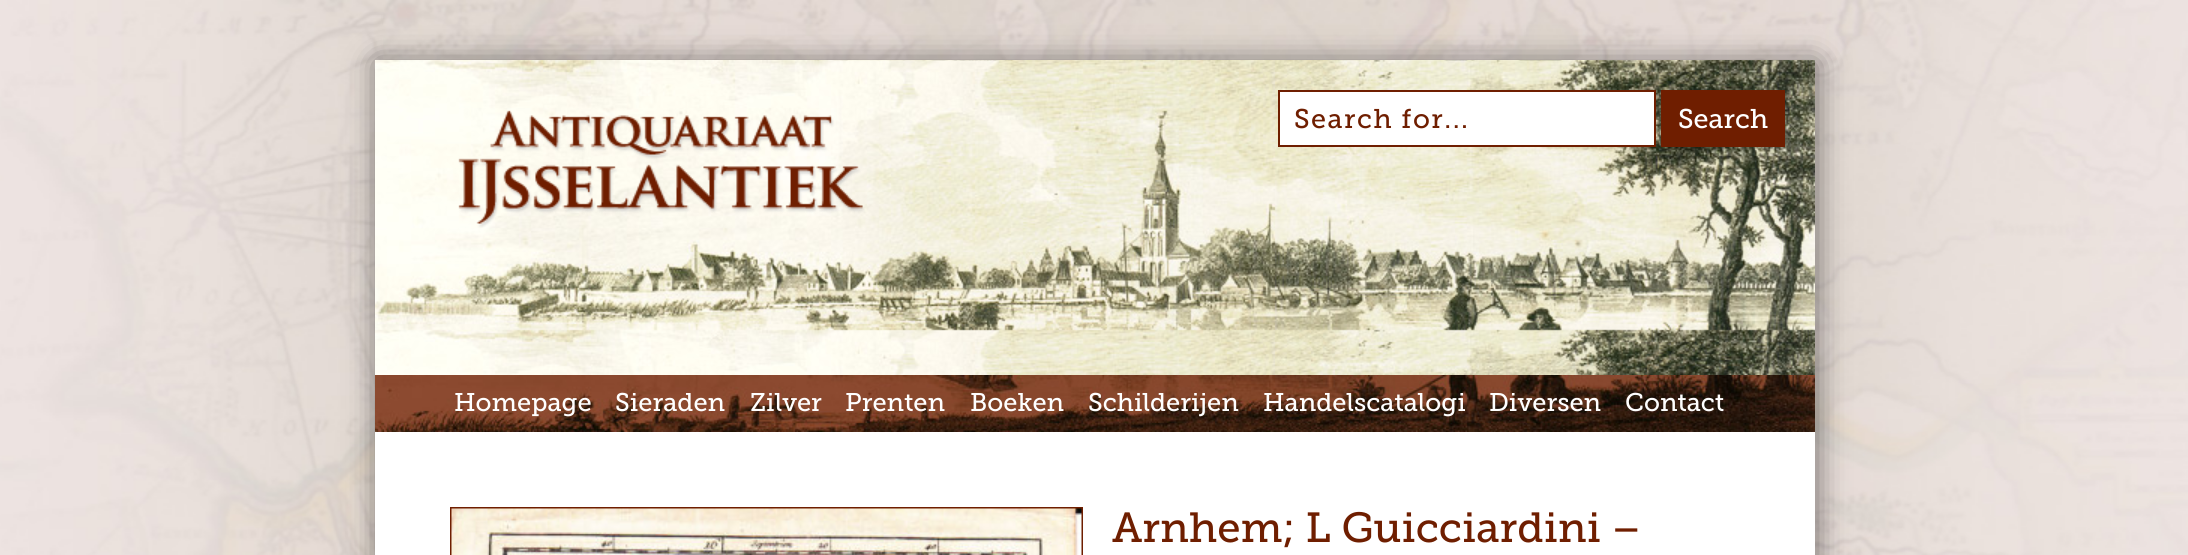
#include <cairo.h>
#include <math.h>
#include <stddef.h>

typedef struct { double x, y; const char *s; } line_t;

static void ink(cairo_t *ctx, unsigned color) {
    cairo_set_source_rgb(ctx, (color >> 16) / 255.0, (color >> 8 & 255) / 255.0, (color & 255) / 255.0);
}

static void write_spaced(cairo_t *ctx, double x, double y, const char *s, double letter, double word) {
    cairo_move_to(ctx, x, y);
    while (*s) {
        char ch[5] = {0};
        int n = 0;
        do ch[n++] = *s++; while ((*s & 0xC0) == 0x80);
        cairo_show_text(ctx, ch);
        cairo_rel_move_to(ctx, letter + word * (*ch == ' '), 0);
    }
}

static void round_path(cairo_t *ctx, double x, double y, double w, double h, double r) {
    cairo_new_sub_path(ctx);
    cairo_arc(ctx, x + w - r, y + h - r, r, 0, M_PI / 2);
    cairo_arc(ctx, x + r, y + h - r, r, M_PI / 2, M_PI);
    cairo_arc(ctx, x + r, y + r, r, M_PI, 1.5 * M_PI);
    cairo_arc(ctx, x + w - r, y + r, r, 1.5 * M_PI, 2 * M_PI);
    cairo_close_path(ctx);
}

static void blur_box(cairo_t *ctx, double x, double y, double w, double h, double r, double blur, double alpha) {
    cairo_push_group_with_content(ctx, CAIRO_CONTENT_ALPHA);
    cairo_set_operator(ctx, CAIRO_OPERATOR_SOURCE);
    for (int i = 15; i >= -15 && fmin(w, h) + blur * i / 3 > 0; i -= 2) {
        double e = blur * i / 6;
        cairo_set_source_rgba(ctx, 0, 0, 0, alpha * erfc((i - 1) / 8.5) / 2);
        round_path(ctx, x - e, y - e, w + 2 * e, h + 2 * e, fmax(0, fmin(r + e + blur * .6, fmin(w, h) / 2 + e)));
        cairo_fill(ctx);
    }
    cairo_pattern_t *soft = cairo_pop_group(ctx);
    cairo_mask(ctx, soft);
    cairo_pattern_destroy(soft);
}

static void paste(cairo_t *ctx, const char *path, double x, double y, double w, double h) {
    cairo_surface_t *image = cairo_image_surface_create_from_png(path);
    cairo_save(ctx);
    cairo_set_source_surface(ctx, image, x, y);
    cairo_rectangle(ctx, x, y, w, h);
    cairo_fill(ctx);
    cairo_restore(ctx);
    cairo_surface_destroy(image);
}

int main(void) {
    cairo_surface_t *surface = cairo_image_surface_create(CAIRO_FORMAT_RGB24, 2188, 555);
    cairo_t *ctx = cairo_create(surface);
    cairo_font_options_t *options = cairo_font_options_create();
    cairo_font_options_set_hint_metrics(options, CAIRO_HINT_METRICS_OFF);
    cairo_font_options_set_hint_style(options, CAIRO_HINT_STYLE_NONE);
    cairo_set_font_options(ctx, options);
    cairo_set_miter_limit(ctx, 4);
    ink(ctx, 0xFFFFFF);
    cairo_paint(ctx);
    paste(ctx, "media/1.png", 0, 0, 2188, 555);
    ink(ctx, 0x000000);
    blur_box(ctx, 377, 62, 1440, 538, 0, 15, 0.5);
    ink(ctx, 0xFFFFFF);
    cairo_rectangle(ctx, 375, 432, 1440, 123);
    cairo_fill(ctx);
    paste(ctx, "media/2.png", 375, 60, 1440, 315);
    paste(ctx, "media/3.png", 458, 110, 407, 118);
    cairo_rectangle(ctx, 1279, 91, 376, 55);
    cairo_fill_preserve(ctx);
    ink(ctx, 0x6F1E00);
    cairo_stroke(ctx);
    cairo_select_font_face(ctx, "Museo Slab", CAIRO_FONT_SLANT_NORMAL, CAIRO_FONT_WEIGHT_NORMAL);
    cairo_set_font_size(ctx, 27);
    write_spaced(ctx, 1294, 128, "Search for...", 1.5, 0);
    cairo_rectangle(ctx, 1661, 90, 124, 57);
    cairo_fill(ctx);
    ink(ctx, 0xFFFFFF);
    cairo_move_to(ctx, 1678, 128);
    cairo_show_text(ctx, "Search");
    paste(ctx, "media/4.png", 375, 375, 1440, 57);
    cairo_set_font_size(ctx, 25.5);
    {
        static const line_t items[] = {
            {454, 411, "Homepage"},
            {615, 411, "Sieraden"},
            {750, 411, "Zilver"},
            {845, 411, "Prenten"},
            {970, 411, "Boeken"},
            {1088, 411, "Schilderijen"},
            {1263, 411, "Handelscatalogi"},
            {1489, 411, "Diversen"},
            {1625, 411, "Contact"},
        };
        for (size_t i = 0; i < sizeof items / sizeof *items; i++) {
            cairo_move_to(ctx, items[i].x, items[i].y);
            cairo_show_text(ctx, items[i].s);
        }
    }
    cairo_rectangle(ctx, 451, 508, 631, 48);
    ink(ctx, 0x6F1E00);
    cairo_stroke(ctx);
    paste(ctx, "media/5.png", 451, 508, 631, 47);
    cairo_set_font_size(ctx, 42);
    cairo_move_to(ctx, 1112, 542);
    cairo_show_text(ctx, "Arnhem; L Guicciardini –");
    cairo_surface_write_to_png(surface, "image.png");
    cairo_font_options_destroy(options);
    cairo_destroy(ctx);
    cairo_surface_destroy(surface);
    return 0;
}
